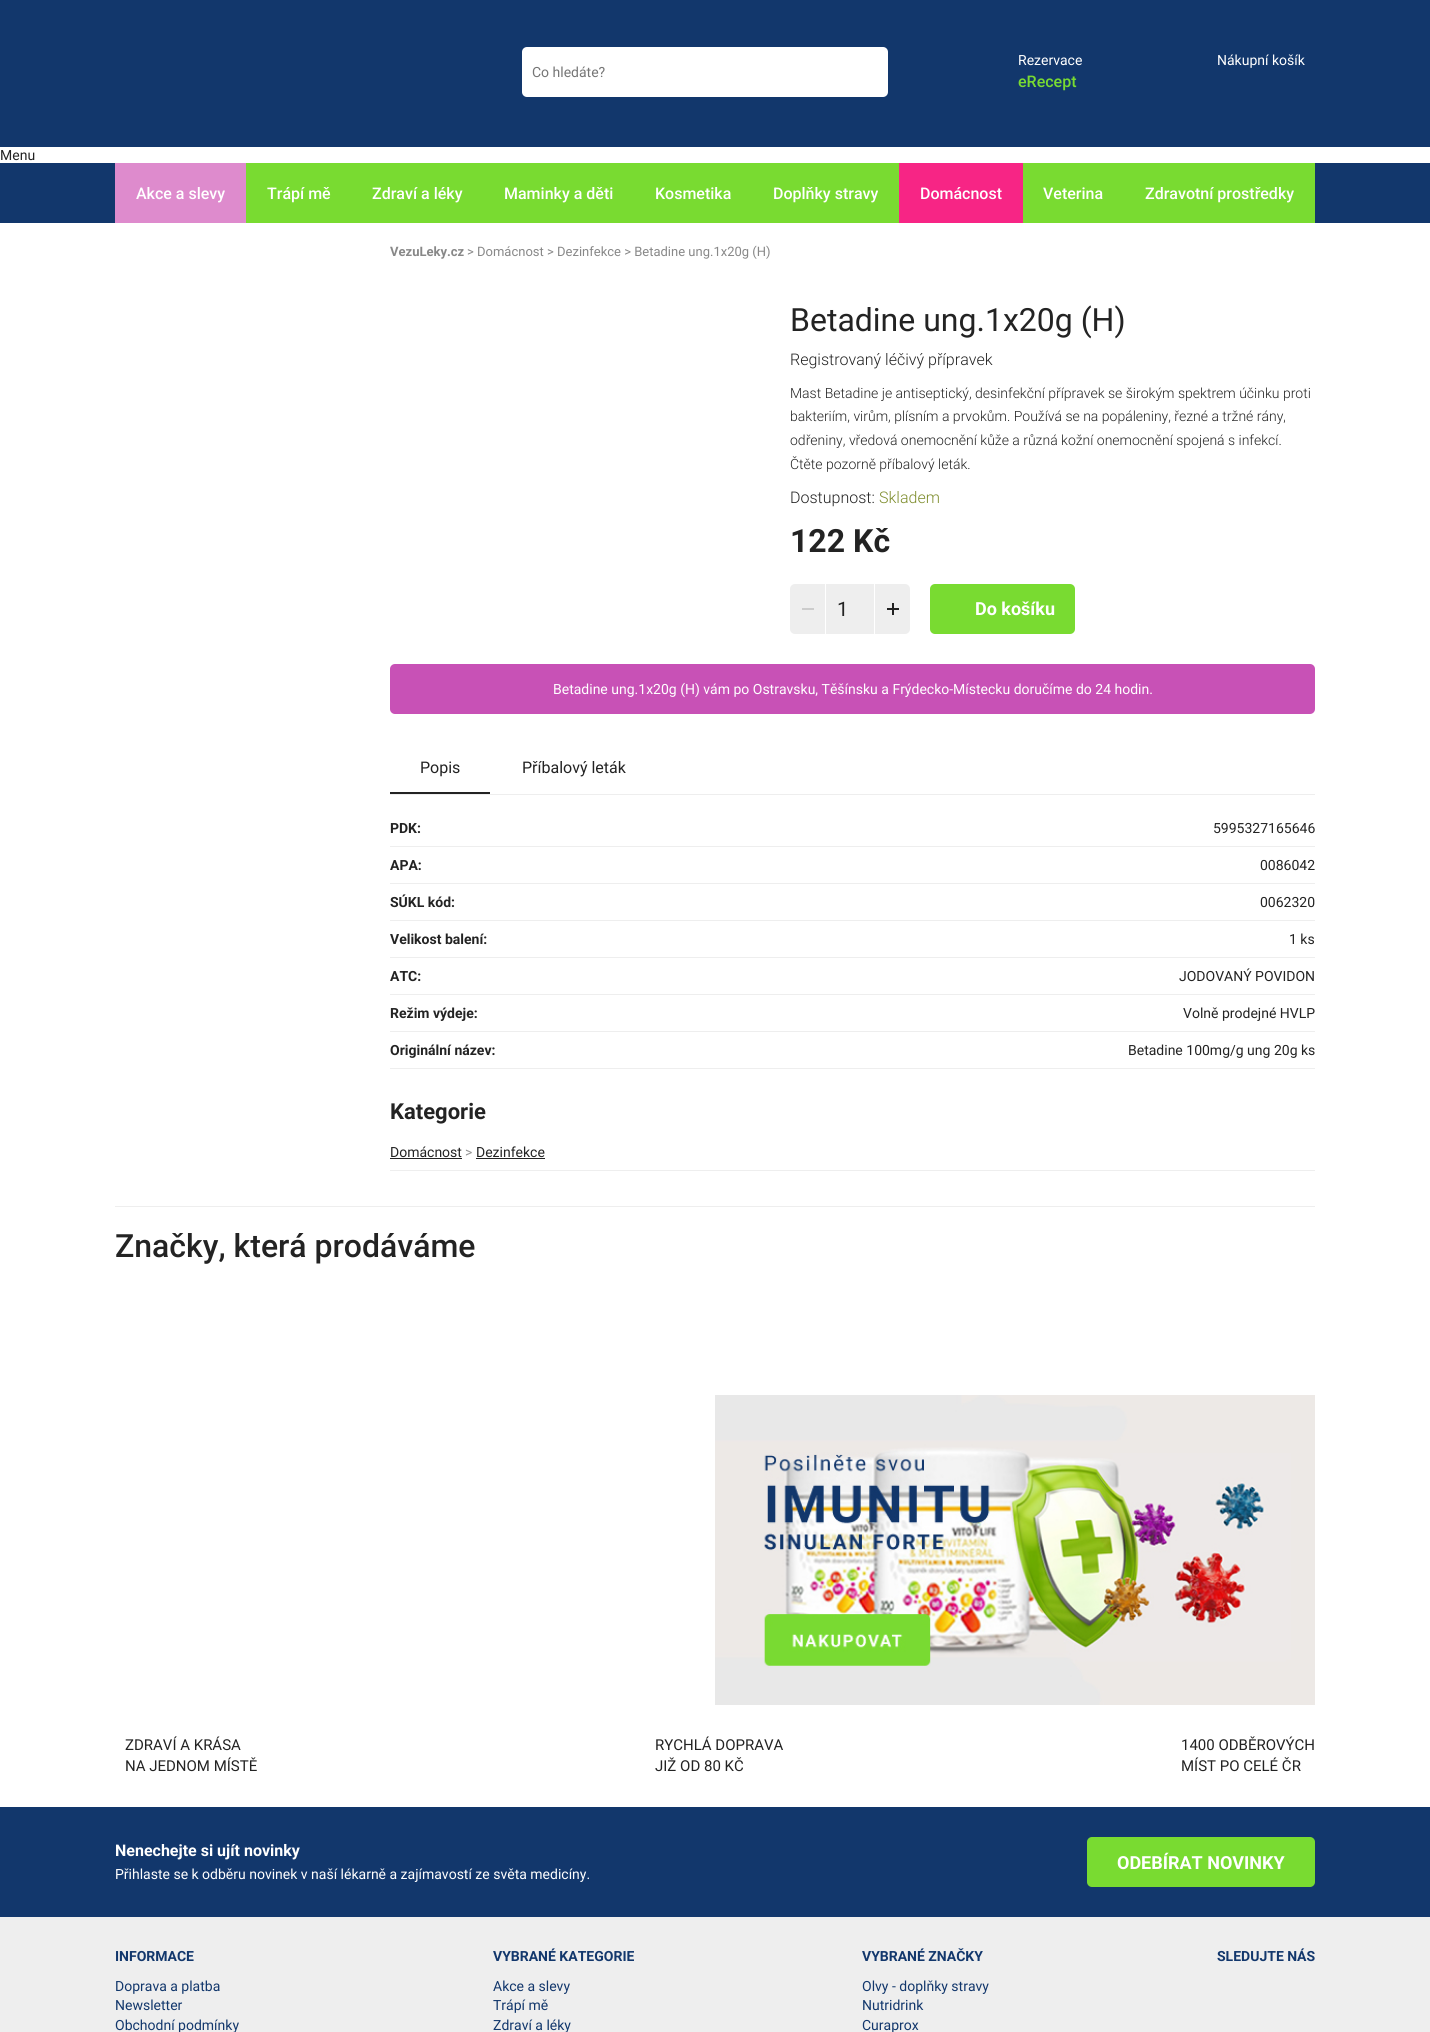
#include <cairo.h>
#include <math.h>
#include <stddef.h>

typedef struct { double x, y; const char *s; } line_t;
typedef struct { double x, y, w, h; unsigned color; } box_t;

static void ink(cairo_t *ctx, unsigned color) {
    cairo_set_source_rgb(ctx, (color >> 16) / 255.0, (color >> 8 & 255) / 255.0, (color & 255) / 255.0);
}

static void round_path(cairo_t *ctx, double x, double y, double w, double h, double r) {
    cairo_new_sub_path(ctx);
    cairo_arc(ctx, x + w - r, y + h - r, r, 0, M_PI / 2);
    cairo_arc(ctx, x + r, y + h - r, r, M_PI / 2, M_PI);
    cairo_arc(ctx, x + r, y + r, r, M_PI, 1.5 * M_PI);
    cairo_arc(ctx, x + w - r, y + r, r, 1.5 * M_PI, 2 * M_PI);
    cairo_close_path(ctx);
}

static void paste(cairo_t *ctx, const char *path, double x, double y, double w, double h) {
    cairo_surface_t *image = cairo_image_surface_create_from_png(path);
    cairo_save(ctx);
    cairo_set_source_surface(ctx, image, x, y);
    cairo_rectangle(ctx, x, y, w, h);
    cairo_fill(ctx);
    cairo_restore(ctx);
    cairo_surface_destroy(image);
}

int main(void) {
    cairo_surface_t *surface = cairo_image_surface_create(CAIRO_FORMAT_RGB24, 1430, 2032);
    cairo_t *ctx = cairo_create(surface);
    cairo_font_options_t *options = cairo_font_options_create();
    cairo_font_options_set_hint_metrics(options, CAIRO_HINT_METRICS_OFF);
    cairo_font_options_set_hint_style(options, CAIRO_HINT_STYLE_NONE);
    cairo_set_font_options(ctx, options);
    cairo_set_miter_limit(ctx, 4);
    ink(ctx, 0xFFFFFF);
    cairo_paint(ctx);
    ink(ctx, 0x12376C);
    cairo_rectangle(ctx, 0, 0, 1430, 147);
    cairo_fill(ctx);
    ink(ctx, 0xFFFFFF);
    round_path(ctx, 522, 47, 366, 50, 5);
    cairo_fill(ctx);
    cairo_select_font_face(ctx, "Roboto", CAIRO_FONT_SLANT_NORMAL, CAIRO_FONT_WEIGHT_NORMAL);
    cairo_set_font_size(ctx, 14);
    ink(ctx, 0x757575);
    cairo_move_to(ctx, 532, 77);
    cairo_show_text(ctx, "Co hledáte?");
    ink(ctx, 0xFFFFFF);
    cairo_move_to(ctx, 1018, 65);
    cairo_show_text(ctx, "Rezervace");
    cairo_select_font_face(ctx, "Roboto Medium", CAIRO_FONT_SLANT_NORMAL, CAIRO_FONT_WEIGHT_NORMAL);
    cairo_set_font_size(ctx, 16);
    ink(ctx, 0x79DB31);
    cairo_move_to(ctx, 1018, 87);
    cairo_show_text(ctx, "eRecept");
    cairo_select_font_face(ctx, "Roboto", CAIRO_FONT_SLANT_NORMAL, CAIRO_FONT_WEIGHT_NORMAL);
    cairo_set_font_size(ctx, 14);
    ink(ctx, 0xFFFFFF);
    cairo_move_to(ctx, 1217, 65);
    cairo_show_text(ctx, "Nákupní košík");
    ink(ctx, 0x232323);
    cairo_move_to(ctx, 0, 160);
    cairo_show_text(ctx, "Menu");
    {
        static const box_t items[] = {
            {0, 163, 1430, 60, 0x12376C},
            {246, 163, 1069, 60, 0x79DB31},
            {115, 163, 131, 60, 0xDE8BCD},
        };
        for (size_t i = 0; i < sizeof items / sizeof *items; i++) {
            ink(ctx, items[i].color);
            cairo_rectangle(ctx, items[i].x, items[i].y, items[i].w, items[i].h);
            cairo_fill(ctx);
        }
    }
    cairo_select_font_face(ctx, "Roboto Medium", CAIRO_FONT_SLANT_NORMAL, CAIRO_FONT_WEIGHT_NORMAL);
    cairo_set_font_size(ctx, 16);
    ink(ctx, 0xFFFFFF);
    {
        static const line_t items[] = {
            {136, 199, "Akce a slevy"},
            {267, 199, "Trápí mě"},
            {372, 199, "Zdraví a léky"},
            {504, 199, "Maminky a děti"},
            {655, 199, "Kosmetika"},
            {773, 199, "Doplňky stravy"},
        };
        for (size_t i = 0; i < sizeof items / sizeof *items; i++) {
            cairo_move_to(ctx, items[i].x, items[i].y);
            cairo_show_text(ctx, items[i].s);
        }
    }
    ink(ctx, 0xF72585);
    cairo_rectangle(ctx, 899, 163, 124, 60);
    cairo_fill(ctx);
    ink(ctx, 0xFFFFFF);
    {
        static const line_t items[] = {
            {920, 199, "Domácnost"},
            {1043, 199, "Veterina"},
            {1145, 199, "Zdravotní prostředky"},
        };
        for (size_t i = 0; i < sizeof items / sizeof *items; i++) {
            cairo_move_to(ctx, items[i].x, items[i].y);
            cairo_show_text(ctx, items[i].s);
        }
    }
    cairo_select_font_face(ctx, "Roboto", CAIRO_FONT_SLANT_NORMAL, CAIRO_FONT_WEIGHT_BOLD);
    cairo_set_font_size(ctx, 13);
    ink(ctx, 0x888888);
    cairo_move_to(ctx, 390, 256);
    cairo_show_text(ctx, "VezuLeky.cz");
    cairo_select_font_face(ctx, "Roboto", CAIRO_FONT_SLANT_NORMAL, CAIRO_FONT_WEIGHT_NORMAL);
    cairo_move_to(ctx, 467, 256);
    cairo_show_text(ctx, "> Domácnost > Dezinfekce > Betadine ung.1x20g (H)");
    cairo_set_font_size(ctx, 32);
    ink(ctx, 0x232323);
    cairo_move_to(ctx, 790, 331);
    cairo_show_text(ctx, "Betadine ung.1x20g (H)");
    cairo_select_font_face(ctx, "Roboto Light", CAIRO_FONT_SLANT_NORMAL, CAIRO_FONT_WEIGHT_NORMAL);
    cairo_set_font_size(ctx, 16);
    cairo_move_to(ctx, 790, 365);
    cairo_show_text(ctx, "Registrovaný léčivý přípravek");
    cairo_set_font_size(ctx, 14);
    {
        static const line_t items[] = {
            {790, 398, "Mast Betadine je antiseptický, desinfekční přípravek se širokým spektrem účinku proti"},
            {790, 421, "bakteriím, virům, plísním a prvokům. Používá se na popáleniny, řezné a tržné rány,"},
            {790, 445, "odřeniny, vředová onemocnění kůže a různá kožní onemocnění spojená s infekcí."},
            {790, 469, "Čtěte pozorně příbalový leták."},
        };
        for (size_t i = 0; i < sizeof items / sizeof *items; i++) {
            cairo_move_to(ctx, items[i].x, items[i].y);
            cairo_show_text(ctx, items[i].s);
        }
    }
    cairo_set_font_size(ctx, 16);
    cairo_move_to(ctx, 790, 503);
    cairo_show_text(ctx, "Dostupnost:");
    ink(ctx, 0x7E8D2D);
    cairo_move_to(ctx, 879, 503);
    cairo_show_text(ctx, "Skladem");
    cairo_select_font_face(ctx, "Roboto", CAIRO_FONT_SLANT_NORMAL, CAIRO_FONT_WEIGHT_BOLD);
    cairo_set_font_size(ctx, 32);
    ink(ctx, 0x232323);
    cairo_move_to(ctx, 790, 552);
    cairo_show_text(ctx, "122 Kč");
    ink(ctx, 0xEEEEEE);
    round_path(ctx, 790, 584, 120, 50, 5);
    cairo_fill(ctx);
    {
        static const box_t items[] = {
            {802, 608, 12, 2, 0xCCCCCC},
            {874, 584, 1, 50, 0xFFFFFF},
            {825, 584, 1, 50, 0xFFFFFF},
        };
        for (size_t i = 0; i < sizeof items / sizeof *items; i++) {
            ink(ctx, items[i].color);
            cairo_rectangle(ctx, items[i].x, items[i].y, items[i].w, items[i].h);
            cairo_fill(ctx);
        }
    }
    cairo_select_font_face(ctx, "Roboto", CAIRO_FONT_SLANT_NORMAL, CAIRO_FONT_WEIGHT_NORMAL);
    cairo_set_font_size(ctx, 20);
    ink(ctx, 0x232323);
    cairo_move_to(ctx, 837, 616);
    cairo_show_text(ctx, "1");
    ink(ctx, 0x222222);
    cairo_rectangle(ctx, 887, 608, 12, 2);
    cairo_fill(ctx);
    cairo_rectangle(ctx, 892, 603, 2, 12);
    cairo_fill(ctx);
    ink(ctx, 0x79DB31);
    round_path(ctx, 930, 584, 145, 50, 5);
    cairo_fill(ctx);
    cairo_select_font_face(ctx, "Roboto", CAIRO_FONT_SLANT_NORMAL, CAIRO_FONT_WEIGHT_BOLD);
    cairo_set_font_size(ctx, 18);
    ink(ctx, 0xFFFFFF);
    cairo_move_to(ctx, 975, 615);
    cairo_show_text(ctx, "Do košíku");
    ink(ctx, 0xC851B6);
    round_path(ctx, 390, 664, 925, 50, 5);
    cairo_fill(ctx);
    cairo_select_font_face(ctx, "Roboto", CAIRO_FONT_SLANT_NORMAL, CAIRO_FONT_WEIGHT_NORMAL);
    cairo_set_font_size(ctx, 14);
    ink(ctx, 0xFFFFFF);
    cairo_move_to(ctx, 553, 694);
    cairo_show_text(ctx, "Betadine ung.1x20g (H) vám po Ostravsku, Těšínsku a Frýdecko-Místecku doručíme do 24 hodin.");
    ink(ctx, 0xEEEEEE);
    cairo_rectangle(ctx, 390, 794, 925, 1);
    cairo_fill(ctx);
    ink(ctx, 0x232323);
    cairo_rectangle(ctx, 390, 792, 100, 2);
    cairo_fill(ctx);
    cairo_set_font_size(ctx, 16);
    cairo_move_to(ctx, 420, 773);
    cairo_show_text(ctx, "Popis");
    cairo_move_to(ctx, 522, 773);
    cairo_show_text(ctx, "Příbalový leták");
    ink(ctx, 0xEEEEEE);
    cairo_rectangle(ctx, 390, 846, 925, 1);
    cairo_fill(ctx);
    cairo_select_font_face(ctx, "Roboto", CAIRO_FONT_SLANT_NORMAL, CAIRO_FONT_WEIGHT_BOLD);
    cairo_set_font_size(ctx, 14);
    ink(ctx, 0x232323);
    cairo_move_to(ctx, 390, 833);
    cairo_show_text(ctx, "PDK:");
    cairo_select_font_face(ctx, "Roboto", CAIRO_FONT_SLANT_NORMAL, CAIRO_FONT_WEIGHT_NORMAL);
    cairo_move_to(ctx, 1213, 833);
    cairo_show_text(ctx, "5995327165646");
    ink(ctx, 0xEEEEEE);
    cairo_rectangle(ctx, 390, 883, 925, 1);
    cairo_fill(ctx);
    cairo_select_font_face(ctx, "Roboto", CAIRO_FONT_SLANT_NORMAL, CAIRO_FONT_WEIGHT_BOLD);
    ink(ctx, 0x232323);
    cairo_move_to(ctx, 390, 870);
    cairo_show_text(ctx, "APA:");
    cairo_select_font_face(ctx, "Roboto", CAIRO_FONT_SLANT_NORMAL, CAIRO_FONT_WEIGHT_NORMAL);
    cairo_move_to(ctx, 1260, 870);
    cairo_show_text(ctx, "0086042");
    ink(ctx, 0xEEEEEE);
    cairo_rectangle(ctx, 390, 920, 925, 1);
    cairo_fill(ctx);
    cairo_select_font_face(ctx, "Roboto", CAIRO_FONT_SLANT_NORMAL, CAIRO_FONT_WEIGHT_BOLD);
    ink(ctx, 0x232323);
    cairo_move_to(ctx, 390, 907);
    cairo_show_text(ctx, "SÚKL kód:");
    cairo_select_font_face(ctx, "Roboto", CAIRO_FONT_SLANT_NORMAL, CAIRO_FONT_WEIGHT_NORMAL);
    cairo_move_to(ctx, 1260, 907);
    cairo_show_text(ctx, "0062320");
    ink(ctx, 0xEEEEEE);
    cairo_rectangle(ctx, 390, 957, 925, 1);
    cairo_fill(ctx);
    cairo_select_font_face(ctx, "Roboto", CAIRO_FONT_SLANT_NORMAL, CAIRO_FONT_WEIGHT_BOLD);
    ink(ctx, 0x232323);
    cairo_move_to(ctx, 390, 944);
    cairo_show_text(ctx, "Velikost balení:");
    cairo_select_font_face(ctx, "Roboto", CAIRO_FONT_SLANT_NORMAL, CAIRO_FONT_WEIGHT_NORMAL);
    cairo_move_to(ctx, 1289, 944);
    cairo_show_text(ctx, "1 ks");
    ink(ctx, 0xEEEEEE);
    cairo_rectangle(ctx, 390, 994, 925, 1);
    cairo_fill(ctx);
    cairo_select_font_face(ctx, "Roboto", CAIRO_FONT_SLANT_NORMAL, CAIRO_FONT_WEIGHT_BOLD);
    ink(ctx, 0x232323);
    cairo_move_to(ctx, 390, 981);
    cairo_show_text(ctx, "ATC:");
    cairo_select_font_face(ctx, "Roboto", CAIRO_FONT_SLANT_NORMAL, CAIRO_FONT_WEIGHT_NORMAL);
    cairo_move_to(ctx, 1179, 981);
    cairo_show_text(ctx, "JODOVANÝ POVIDON");
    ink(ctx, 0xEEEEEE);
    cairo_rectangle(ctx, 390, 1031, 925, 1);
    cairo_fill(ctx);
    cairo_select_font_face(ctx, "Roboto", CAIRO_FONT_SLANT_NORMAL, CAIRO_FONT_WEIGHT_BOLD);
    ink(ctx, 0x232323);
    cairo_move_to(ctx, 390, 1018);
    cairo_show_text(ctx, "Režim výdeje:");
    cairo_select_font_face(ctx, "Roboto", CAIRO_FONT_SLANT_NORMAL, CAIRO_FONT_WEIGHT_NORMAL);
    cairo_move_to(ctx, 1183, 1018);
    cairo_show_text(ctx, "Volně prodejné HVLP");
    ink(ctx, 0xEEEEEE);
    cairo_rectangle(ctx, 390, 1068, 925, 1);
    cairo_fill(ctx);
    cairo_select_font_face(ctx, "Roboto", CAIRO_FONT_SLANT_NORMAL, CAIRO_FONT_WEIGHT_BOLD);
    ink(ctx, 0x232323);
    cairo_move_to(ctx, 390, 1055);
    cairo_show_text(ctx, "Originální název:");
    cairo_select_font_face(ctx, "Roboto", CAIRO_FONT_SLANT_NORMAL, CAIRO_FONT_WEIGHT_NORMAL);
    cairo_move_to(ctx, 1128, 1055);
    cairo_show_text(ctx, "Betadine 100mg/g ung 20g ks");
    cairo_select_font_face(ctx, "Roboto", CAIRO_FONT_SLANT_NORMAL, CAIRO_FONT_WEIGHT_BOLD);
    cairo_set_font_size(ctx, 22);
    cairo_move_to(ctx, 390, 1119);
    cairo_show_text(ctx, "Kategorie");
    ink(ctx, 0xEEEEEE);
    cairo_rectangle(ctx, 390, 1170, 925, 1);
    cairo_fill(ctx);
    cairo_select_font_face(ctx, "Roboto", CAIRO_FONT_SLANT_NORMAL, CAIRO_FONT_WEIGHT_NORMAL);
    cairo_set_font_size(ctx, 14);
    ink(ctx, 0x232323);
    cairo_move_to(ctx, 390, 1157);
    cairo_show_text(ctx, "Domácnost");
    cairo_rectangle(ctx, 390, 1158, 72, 1);
    cairo_fill(ctx);
    ink(ctx, 0x959595);
    cairo_move_to(ctx, 465, 1157);
    cairo_show_text(ctx, ">");
    ink(ctx, 0x232323);
    cairo_move_to(ctx, 476, 1157);
    cairo_show_text(ctx, "Dezinfekce");
    cairo_rectangle(ctx, 476, 1158, 69, 1);
    cairo_fill(ctx);
    ink(ctx, 0xEEEEEE);
    cairo_rectangle(ctx, 115, 1206, 1200, 1);
    cairo_fill(ctx);
    cairo_select_font_face(ctx, "Roboto Medium", CAIRO_FONT_SLANT_NORMAL, CAIRO_FONT_WEIGHT_NORMAL);
    cairo_set_font_size(ctx, 32);
    ink(ctx, 0x232323);
    cairo_move_to(ctx, 115, 1257);
    cairo_show_text(ctx, "Značky, která prodáváme");
    paste(ctx, "media/1.png", 715, 1395, 600, 310);
    cairo_select_font_face(ctx, "Roboto", CAIRO_FONT_SLANT_NORMAL, CAIRO_FONT_WEIGHT_NORMAL);
    cairo_set_font_size(ctx, 15);
    {
        static const line_t items[] = {
            {125, 1750, "ZDRAVÍ A KRÁSA"},
            {125, 1771, "NA JEDNOM MÍSTĚ"},
            {655, 1750, "RYCHLÁ DOPRAVA"},
            {655, 1771, "JIŽ OD 80 KČ"},
            {1181, 1750, "1400 ODBĚROVÝCH"},
            {1181, 1771, "MÍST PO CELÉ ČR"},
        };
        for (size_t i = 0; i < sizeof items / sizeof *items; i++) {
            cairo_move_to(ctx, items[i].x, items[i].y);
            cairo_show_text(ctx, items[i].s);
        }
    }
    ink(ctx, 0x12376C);
    cairo_rectangle(ctx, 0, 1807, 1430, 110);
    cairo_fill(ctx);
    cairo_select_font_face(ctx, "Roboto", CAIRO_FONT_SLANT_NORMAL, CAIRO_FONT_WEIGHT_BOLD);
    cairo_set_font_size(ctx, 16);
    ink(ctx, 0xFFFFFF);
    cairo_move_to(ctx, 115, 1856);
    cairo_show_text(ctx, "Nenechejte si ujít novinky");
    cairo_select_font_face(ctx, "Roboto", CAIRO_FONT_SLANT_NORMAL, CAIRO_FONT_WEIGHT_NORMAL);
    cairo_set_font_size(ctx, 14);
    cairo_move_to(ctx, 115, 1879);
    cairo_show_text(ctx, "Přihlaste se k odběru novinek v naší lékarně a zajímavostí ze světa medicíny.");
    ink(ctx, 0x79DB31);
    round_path(ctx, 1087, 1837, 228, 50, 5);
    cairo_fill(ctx);
    cairo_select_font_face(ctx, "Roboto", CAIRO_FONT_SLANT_NORMAL, CAIRO_FONT_WEIGHT_BOLD);
    cairo_set_font_size(ctx, 18);
    ink(ctx, 0xFFFFFF);
    cairo_move_to(ctx, 1117, 1869);
    cairo_show_text(ctx, "ODEBÍRAT NOVINKY");
    ink(ctx, 0xEEEEEE);
    cairo_rectangle(ctx, 0, 1917, 1430, 115);
    cairo_fill(ctx);
    cairo_set_font_size(ctx, 14);
    ink(ctx, 0x12376C);
    cairo_move_to(ctx, 115, 1961);
    cairo_show_text(ctx, "INFORMACE");
    cairo_select_font_face(ctx, "Roboto", CAIRO_FONT_SLANT_NORMAL, CAIRO_FONT_WEIGHT_NORMAL);
    {
        static const line_t items[] = {
            {115, 1991, "Doprava a platba"},
            {115, 2010, "Newsletter"},
            {115, 2030, "Obchodní podmínky"},
        };
        for (size_t i = 0; i < sizeof items / sizeof *items; i++) {
            cairo_move_to(ctx, items[i].x, items[i].y);
            cairo_show_text(ctx, items[i].s);
        }
    }
    cairo_select_font_face(ctx, "Roboto", CAIRO_FONT_SLANT_NORMAL, CAIRO_FONT_WEIGHT_BOLD);
    cairo_move_to(ctx, 493, 1961);
    cairo_show_text(ctx, "VYBRANÉ KATEGORIE");
    cairo_select_font_face(ctx, "Roboto", CAIRO_FONT_SLANT_NORMAL, CAIRO_FONT_WEIGHT_NORMAL);
    {
        static const line_t items[] = {
            {493, 1991, "Akce a slevy"},
            {493, 2010, "Trápí mě"},
            {493, 2030, "Zdraví a léky"},
        };
        for (size_t i = 0; i < sizeof items / sizeof *items; i++) {
            cairo_move_to(ctx, items[i].x, items[i].y);
            cairo_show_text(ctx, items[i].s);
        }
    }
    cairo_select_font_face(ctx, "Roboto", CAIRO_FONT_SLANT_NORMAL, CAIRO_FONT_WEIGHT_BOLD);
    cairo_move_to(ctx, 862, 1961);
    cairo_show_text(ctx, "VYBRANÉ ZNAČKY");
    cairo_select_font_face(ctx, "Roboto", CAIRO_FONT_SLANT_NORMAL, CAIRO_FONT_WEIGHT_NORMAL);
    {
        static const line_t items[] = {
            {862, 1991, "Olvy - doplňky stravy"},
            {862, 2010, "Nutridrink"},
            {862, 2030, "Curaprox"},
        };
        for (size_t i = 0; i < sizeof items / sizeof *items; i++) {
            cairo_move_to(ctx, items[i].x, items[i].y);
            cairo_show_text(ctx, items[i].s);
        }
    }
    cairo_select_font_face(ctx, "Roboto", CAIRO_FONT_SLANT_NORMAL, CAIRO_FONT_WEIGHT_BOLD);
    cairo_move_to(ctx, 1217, 1961);
    cairo_show_text(ctx, "SLEDUJTE NÁS");
    cairo_surface_write_to_png(surface, "image.png");
    cairo_font_options_destroy(options);
    cairo_destroy(ctx);
    cairo_surface_destroy(surface);
    return 0;
}
